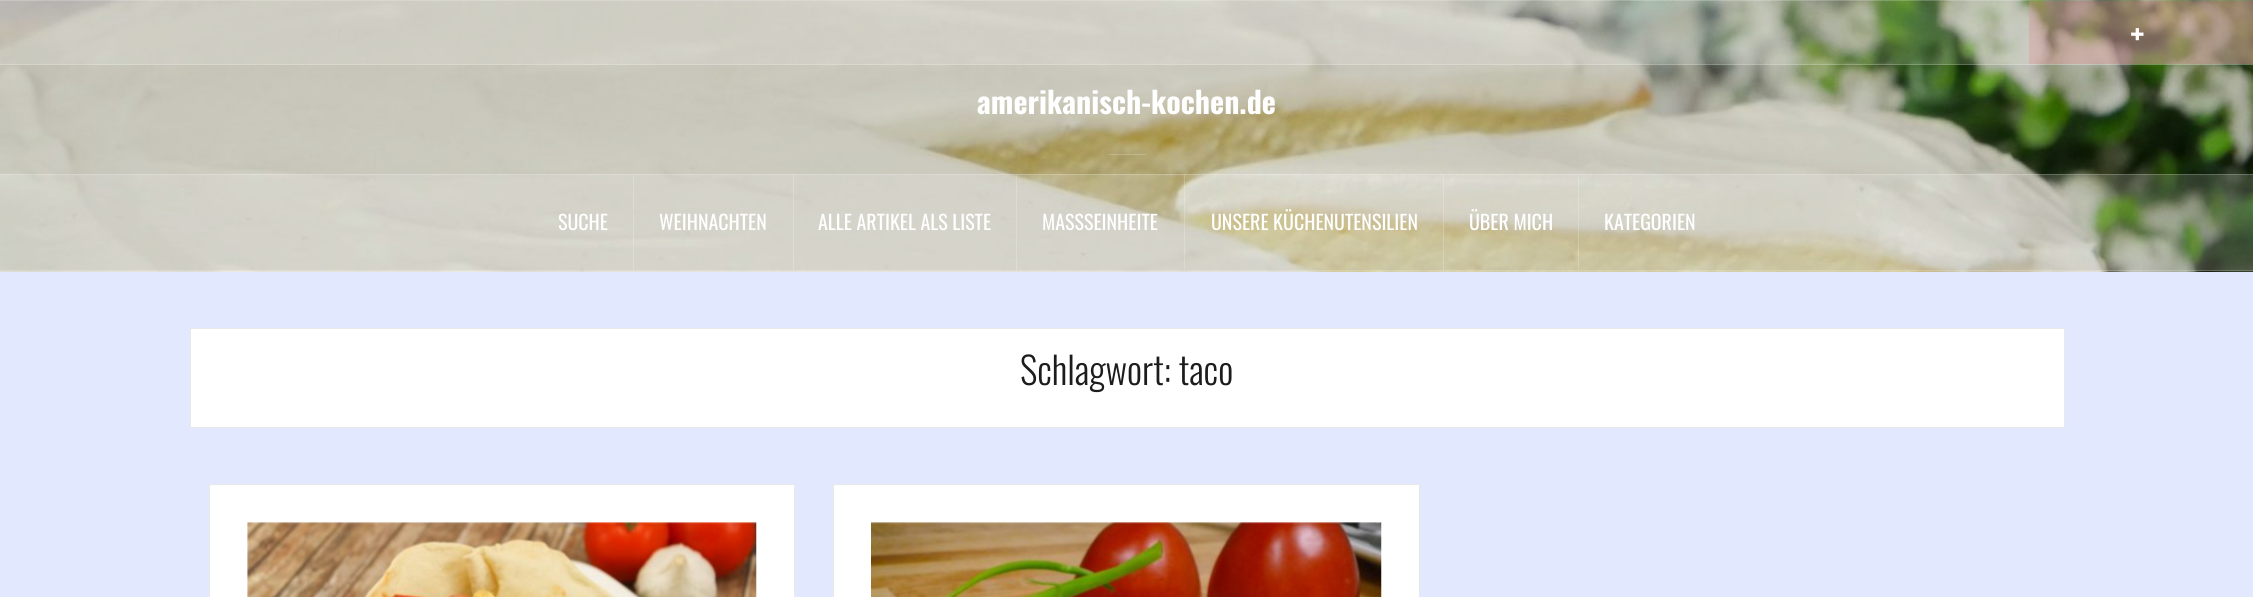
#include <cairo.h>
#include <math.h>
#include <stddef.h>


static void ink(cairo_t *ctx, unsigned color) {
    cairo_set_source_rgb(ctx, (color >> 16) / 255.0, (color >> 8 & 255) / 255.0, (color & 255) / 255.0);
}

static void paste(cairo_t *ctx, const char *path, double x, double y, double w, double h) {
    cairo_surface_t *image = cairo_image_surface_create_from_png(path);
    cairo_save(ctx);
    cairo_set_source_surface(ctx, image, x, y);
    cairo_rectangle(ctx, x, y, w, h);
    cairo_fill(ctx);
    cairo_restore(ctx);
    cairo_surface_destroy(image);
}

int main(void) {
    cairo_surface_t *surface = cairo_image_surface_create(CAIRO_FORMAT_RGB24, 2253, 597);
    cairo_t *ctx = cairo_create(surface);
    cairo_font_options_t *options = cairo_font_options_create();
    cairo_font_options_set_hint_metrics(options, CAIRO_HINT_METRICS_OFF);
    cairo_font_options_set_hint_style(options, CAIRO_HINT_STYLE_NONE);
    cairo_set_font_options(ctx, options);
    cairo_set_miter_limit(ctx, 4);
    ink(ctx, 0xE2E9FF);
    cairo_paint(ctx);
    paste(ctx, "media/1.png", 0, 0, 2253, 272);
    cairo_set_source_rgba(ctx, 1, 1, 1, 0.15);
    cairo_rectangle(ctx, 0, 0, 2253, 65);
    cairo_fill(ctx);
    cairo_set_source_rgba(ctx, 1, 1, 1, 0.2);
    cairo_rectangle(ctx, 0, 0, 2253, 1);
    cairo_fill(ctx);
    cairo_rectangle(ctx, 0, 64, 2253, 1);
    cairo_fill(ctx);
    cairo_set_source_rgba(ctx, 0.867, 0.6, 0.6, 0.4);
    cairo_rectangle(ctx, 2029, 1, 224, 63);
    cairo_fill(ctx);
    cairo_select_font_face(ctx, "Noto Sans Black", CAIRO_FONT_SLANT_NORMAL, CAIRO_FONT_WEIGHT_NORMAL);
    cairo_set_font_size(ctx, 25);
    ink(ctx, 0xFFFFFF);
    cairo_move_to(ctx, 2130, 43);
    cairo_show_text(ctx, "+");
    cairo_select_font_face(ctx, "Oswald", CAIRO_FONT_SLANT_NORMAL, CAIRO_FONT_WEIGHT_BOLD);
    cairo_set_font_size(ctx, 30);
    cairo_move_to(ctx, 977, 114);
    cairo_show_text(ctx, "amerikanisch-kochen.de");
    cairo_set_source_rgba(ctx, 1, 1, 1, 0.2);
    cairo_rectangle(ctx, 1109, 154, 37, 1);
    cairo_fill(ctx);
    cairo_set_source_rgba(ctx, 1, 1, 1, 0.15);
    cairo_rectangle(ctx, 0, 174, 2253, 97);
    cairo_fill(ctx);
    cairo_set_source_rgba(ctx, 1, 1, 1, 0.2);
    cairo_rectangle(ctx, 0, 174, 2253, 1);
    cairo_fill(ctx);
    cairo_rectangle(ctx, 0, 270, 2253, 1);
    cairo_fill(ctx);
    cairo_rectangle(ctx, 633, 175, 1, 95);
    cairo_fill(ctx);
    cairo_select_font_face(ctx, "Oswald", CAIRO_FONT_SLANT_NORMAL, CAIRO_FONT_WEIGHT_NORMAL);
    cairo_set_font_size(ctx, 20);
    ink(ctx, 0xFFFFFF);
    cairo_move_to(ctx, 558, 230);
    cairo_show_text(ctx, "SUCHE");
    cairo_set_source_rgba(ctx, 1, 1, 1, 0.2);
    cairo_rectangle(ctx, 793, 175, 1, 95);
    cairo_fill(ctx);
    ink(ctx, 0xFFFFFF);
    cairo_move_to(ctx, 659, 230);
    cairo_show_text(ctx, "WEIHNACHTEN");
    cairo_set_source_rgba(ctx, 1, 1, 1, 0.2);
    cairo_rectangle(ctx, 1016, 175, 1, 95);
    cairo_fill(ctx);
    ink(ctx, 0xFFFFFF);
    cairo_move_to(ctx, 818, 230);
    cairo_show_text(ctx, "ALLE ARTIKEL ALS LISTE");
    cairo_set_source_rgba(ctx, 1, 1, 1, 0.2);
    cairo_rectangle(ctx, 1184, 175, 1, 95);
    cairo_fill(ctx);
    ink(ctx, 0xFFFFFF);
    cairo_move_to(ctx, 1042, 230);
    cairo_show_text(ctx, "MASSSEINHEITE");
    cairo_set_source_rgba(ctx, 1, 1, 1, 0.2);
    cairo_rectangle(ctx, 1443, 175, 1, 95);
    cairo_fill(ctx);
    ink(ctx, 0xFFFFFF);
    cairo_move_to(ctx, 1211, 230);
    cairo_show_text(ctx, "UNSERE KÜCHENUTENSILIEN");
    cairo_set_source_rgba(ctx, 1, 1, 1, 0.2);
    cairo_rectangle(ctx, 1578, 175, 1, 95);
    cairo_fill(ctx);
    ink(ctx, 0xFFFFFF);
    cairo_move_to(ctx, 1469, 230);
    cairo_show_text(ctx, "ÜBER MICH");
    cairo_move_to(ctx, 1604, 230);
    cairo_show_text(ctx, "KATEGORIEN");
    cairo_rectangle(ctx, 190.5, 328.5, 1874, 99);
    cairo_fill_preserve(ctx);
    ink(ctx, 0xE8E8E8);
    cairo_set_line_width(ctx, 1);
    cairo_stroke(ctx);
    cairo_select_font_face(ctx, "Oswald Light", CAIRO_FONT_SLANT_NORMAL, CAIRO_FONT_WEIGHT_NORMAL);
    cairo_set_font_size(ctx, 37.5);
    ink(ctx, 0x1C1C1C);
    cairo_move_to(ctx, 1020, 385);
    cairo_show_text(ctx, "Schlagwort: taco");
    ink(ctx, 0xFFFFFF);
    cairo_rectangle(ctx, 209.5, 484.5, 585, 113);
    cairo_fill_preserve(ctx);
    ink(ctx, 0xE8E8E8);
    cairo_stroke(ctx);
    paste(ctx, "media/2.png", 247, 522, 510, 75);
    ink(ctx, 0xFFFFFF);
    cairo_rectangle(ctx, 833.5, 484.5, 586, 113);
    cairo_fill_preserve(ctx);
    ink(ctx, 0xE8E8E8);
    cairo_stroke(ctx);
    paste(ctx, "media/3.png", 871, 522, 511, 75);
    cairo_surface_write_to_png(surface, "image.png");
    cairo_font_options_destroy(options);
    cairo_destroy(ctx);
    cairo_surface_destroy(surface);
    return 0;
}
